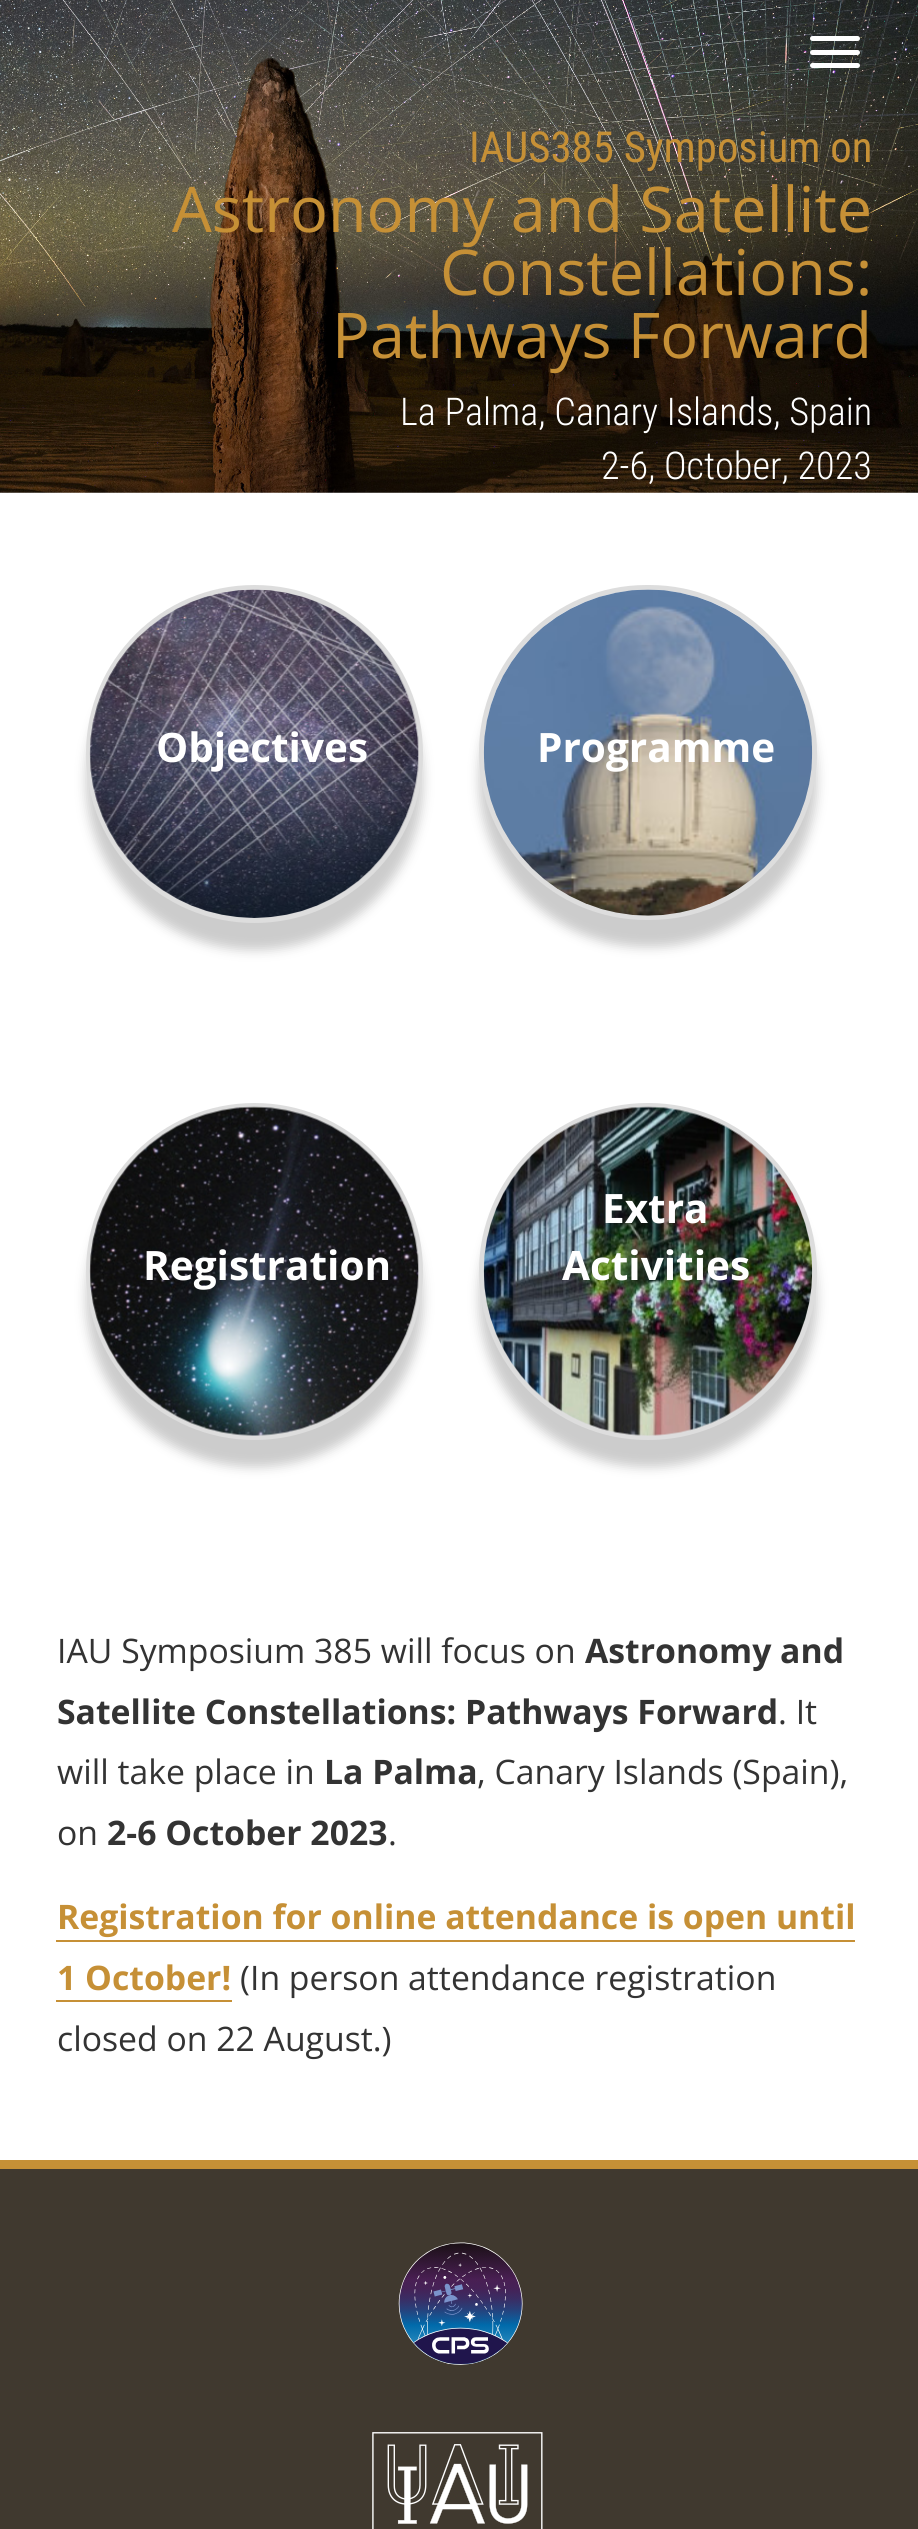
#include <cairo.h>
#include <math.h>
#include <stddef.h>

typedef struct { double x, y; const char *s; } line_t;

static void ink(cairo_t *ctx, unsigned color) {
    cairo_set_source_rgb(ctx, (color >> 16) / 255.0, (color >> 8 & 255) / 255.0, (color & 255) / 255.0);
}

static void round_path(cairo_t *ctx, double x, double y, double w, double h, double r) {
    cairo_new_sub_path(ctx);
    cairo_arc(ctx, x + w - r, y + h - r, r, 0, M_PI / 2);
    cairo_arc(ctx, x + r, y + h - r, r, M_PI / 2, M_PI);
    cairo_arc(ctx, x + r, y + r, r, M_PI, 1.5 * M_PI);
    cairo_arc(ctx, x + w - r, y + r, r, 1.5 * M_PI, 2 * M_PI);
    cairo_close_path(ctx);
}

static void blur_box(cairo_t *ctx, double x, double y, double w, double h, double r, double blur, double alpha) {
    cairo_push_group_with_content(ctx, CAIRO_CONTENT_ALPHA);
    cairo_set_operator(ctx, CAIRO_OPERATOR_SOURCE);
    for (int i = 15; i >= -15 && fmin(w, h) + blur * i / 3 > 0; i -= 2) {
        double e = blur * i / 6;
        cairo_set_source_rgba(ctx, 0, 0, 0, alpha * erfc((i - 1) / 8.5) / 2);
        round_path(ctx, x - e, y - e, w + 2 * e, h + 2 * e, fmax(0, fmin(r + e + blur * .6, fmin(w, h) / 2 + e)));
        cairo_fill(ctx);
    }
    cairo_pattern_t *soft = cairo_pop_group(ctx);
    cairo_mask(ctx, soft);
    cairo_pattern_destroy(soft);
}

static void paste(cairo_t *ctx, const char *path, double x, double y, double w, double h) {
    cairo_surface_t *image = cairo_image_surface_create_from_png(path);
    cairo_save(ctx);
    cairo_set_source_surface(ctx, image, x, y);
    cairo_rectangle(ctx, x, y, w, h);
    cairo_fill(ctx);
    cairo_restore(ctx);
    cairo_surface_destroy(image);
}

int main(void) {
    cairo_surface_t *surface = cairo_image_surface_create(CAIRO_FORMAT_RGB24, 918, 2529);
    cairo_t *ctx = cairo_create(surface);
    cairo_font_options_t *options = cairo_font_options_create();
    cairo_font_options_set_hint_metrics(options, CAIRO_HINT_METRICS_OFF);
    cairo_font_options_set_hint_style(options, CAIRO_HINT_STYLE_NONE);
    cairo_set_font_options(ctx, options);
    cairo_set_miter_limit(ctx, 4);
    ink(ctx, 0xFFFFFF);
    cairo_paint(ctx);
    paste(ctx, "media/1.png", 0, 0, 918, 493);
    ink(ctx, 0xFFFFFF);
    round_path(ctx, 810, 36, 50, 5, 2.5);
    cairo_fill(ctx);
    round_path(ctx, 810, 50, 50, 5, 2.5);
    cairo_fill(ctx);
    round_path(ctx, 810, 63, 50, 5, 2.5);
    cairo_fill(ctx);
    cairo_select_font_face(ctx, "Roboto Condensed", CAIRO_FONT_SLANT_NORMAL, CAIRO_FONT_WEIGHT_NORMAL);
    cairo_set_font_size(ctx, 42.75);
    ink(ctx, 0xC69036);
    cairo_move_to(ctx, 469, 162);
    cairo_show_text(ctx, "IAUS385 Symposium on");
    cairo_select_font_face(ctx, "Open Sans", CAIRO_FONT_SLANT_NORMAL, CAIRO_FONT_WEIGHT_NORMAL);
    cairo_set_font_size(ctx, 63);
    {
        static const line_t items[] = {
            {172, 232, "Astronomy and Satellite"},
            {440, 295, "Constellations:"},
            {332, 358, "Pathways Forward"},
        };
        for (size_t i = 0; i < sizeof items / sizeof *items; i++) {
            cairo_move_to(ctx, items[i].x, items[i].y);
            cairo_show_text(ctx, items[i].s);
        }
    }
    cairo_select_font_face(ctx, "Roboto Condensed Light", CAIRO_FONT_SLANT_NORMAL, CAIRO_FONT_WEIGHT_NORMAL);
    cairo_set_font_size(ctx, 38.25);
    ink(ctx, 0xFFFFFF);
    cairo_move_to(ctx, 400, 425);
    cairo_show_text(ctx, "La Palma, Canary Islands, Spain");
    cairo_move_to(ctx, 601, 479);
    cairo_show_text(ctx, "2-6, October, 2023");
    ink(ctx, 0xCCCCCC);
    blur_box(ctx, 86, 612, 337, 338, 168.5, 5.5, 1);
    round_path(ctx, 88.5, 587.5, 332, 333, 166);
    ink(ctx, 0xDDDDDD);
    cairo_set_line_width(ctx, 5);
    cairo_stroke(ctx);
    paste(ctx, "media/2.png", 89, 589, 330, 329);
    cairo_select_font_face(ctx, "Open Sans", CAIRO_FONT_SLANT_NORMAL, CAIRO_FONT_WEIGHT_BOLD);
    cairo_set_font_size(ctx, 40.5);
    ink(ctx, 0xFFFFFF);
    cairo_move_to(ctx, 156, 762);
    cairo_show_text(ctx, "Objectives");
    ink(ctx, 0xCCCCCC);
    blur_box(ctx, 479, 612, 338, 335, 167.5, 5.5, 1);
    round_path(ctx, 481.5, 587.5, 333, 330, 165);
    ink(ctx, 0xDDDDDD);
    cairo_stroke(ctx);
    paste(ctx, "media/3.png", 483, 589, 330, 327);
    ink(ctx, 0xFFFFFF);
    cairo_move_to(ctx, 537, 762);
    cairo_show_text(ctx, "Programme");
    ink(ctx, 0xCCCCCC);
    blur_box(ctx, 86, 1130, 337, 337, 168.5, 5.5, 1);
    cairo_arc(ctx, 254.5, 1271.5, 166, 0, 2 * M_PI);
    ink(ctx, 0xDDDDDD);
    cairo_stroke(ctx);
    paste(ctx, "media/4.png", 89, 1106, 330, 330);
    ink(ctx, 0xFFFFFF);
    cairo_move_to(ctx, 143, 1280);
    cairo_show_text(ctx, "Registration");
    ink(ctx, 0xCCCCCC);
    blur_box(ctx, 479, 1130, 338, 337, 168.5, 5.5, 1);
    round_path(ctx, 481.5, 1105.5, 333, 332, 166);
    ink(ctx, 0xDDDDDD);
    cairo_stroke(ctx);
    paste(ctx, "media/5.png", 483, 1106, 330, 330);
    ink(ctx, 0xFFFFFF);
    cairo_move_to(ctx, 602, 1223);
    cairo_show_text(ctx, "Extra");
    cairo_move_to(ctx, 562, 1280);
    cairo_show_text(ctx, "Activities");
    cairo_select_font_face(ctx, "Open Sans", CAIRO_FONT_SLANT_NORMAL, CAIRO_FONT_WEIGHT_NORMAL);
    cairo_set_font_size(ctx, 33.75);
    ink(ctx, 0x333333);
    cairo_move_to(ctx, 57, 1663);
    cairo_show_text(ctx, "IAU Symposium 385 will focus on");
    cairo_select_font_face(ctx, "Open Sans", CAIRO_FONT_SLANT_NORMAL, CAIRO_FONT_WEIGHT_BOLD);
    cairo_move_to(ctx, 585, 1663);
    cairo_show_text(ctx, "Astronomy and");
    cairo_move_to(ctx, 57, 1724);
    cairo_show_text(ctx, "Satellite Constellations: Pathways Forward");
    cairo_select_font_face(ctx, "Open Sans", CAIRO_FONT_SLANT_NORMAL, CAIRO_FONT_WEIGHT_NORMAL);
    cairo_move_to(ctx, 778, 1724);
    cairo_show_text(ctx, ". It");
    cairo_move_to(ctx, 57, 1784);
    cairo_show_text(ctx, "will take place in");
    cairo_select_font_face(ctx, "Open Sans", CAIRO_FONT_SLANT_NORMAL, CAIRO_FONT_WEIGHT_BOLD);
    cairo_move_to(ctx, 324, 1784);
    cairo_show_text(ctx, "La Palma");
    cairo_select_font_face(ctx, "Open Sans", CAIRO_FONT_SLANT_NORMAL, CAIRO_FONT_WEIGHT_NORMAL);
    cairo_move_to(ctx, 477, 1784);
    cairo_show_text(ctx, ", Canary Islands (Spain),");
    cairo_move_to(ctx, 57, 1845);
    cairo_show_text(ctx, "on");
    cairo_select_font_face(ctx, "Open Sans", CAIRO_FONT_SLANT_NORMAL, CAIRO_FONT_WEIGHT_BOLD);
    cairo_move_to(ctx, 107, 1845);
    cairo_show_text(ctx, "2-6 October 2023");
    cairo_select_font_face(ctx, "Open Sans", CAIRO_FONT_SLANT_NORMAL, CAIRO_FONT_WEIGHT_NORMAL);
    cairo_move_to(ctx, 388, 1845);
    cairo_show_text(ctx, ".");
    cairo_select_font_face(ctx, "Open Sans", CAIRO_FONT_SLANT_NORMAL, CAIRO_FONT_WEIGHT_BOLD);
    ink(ctx, 0xC69036);
    cairo_move_to(ctx, 57, 1929);
    cairo_show_text(ctx, "Registration for online attendance is open until");
    cairo_rectangle(ctx, 56, 1940, 799, 2);
    cairo_fill(ctx);
    cairo_move_to(ctx, 57, 1990);
    cairo_show_text(ctx, "1 October!");
    cairo_rectangle(ctx, 56, 2000, 176, 2);
    cairo_fill(ctx);
    cairo_select_font_face(ctx, "Open Sans", CAIRO_FONT_SLANT_NORMAL, CAIRO_FONT_WEIGHT_NORMAL);
    ink(ctx, 0x333333);
    cairo_move_to(ctx, 240, 1990);
    cairo_show_text(ctx, "(In person attendance registration");
    cairo_move_to(ctx, 57, 2051);
    cairo_show_text(ctx, "closed on 22 August.)");
    ink(ctx, 0x40392F);
    cairo_rectangle(ctx, 0, 2169, 918, 360);
    cairo_fill(ctx);
    ink(ctx, 0xC69036);
    cairo_rectangle(ctx, 0, 2160, 918, 9);
    cairo_fill(ctx);
    paste(ctx, "media/6.png", 398, 2242, 125, 123);
    paste(ctx, "media/7.png", 372, 2432, 171, 97);
    cairo_surface_write_to_png(surface, "image.png");
    cairo_font_options_destroy(options);
    cairo_destroy(ctx);
    cairo_surface_destroy(surface);
    return 0;
}
